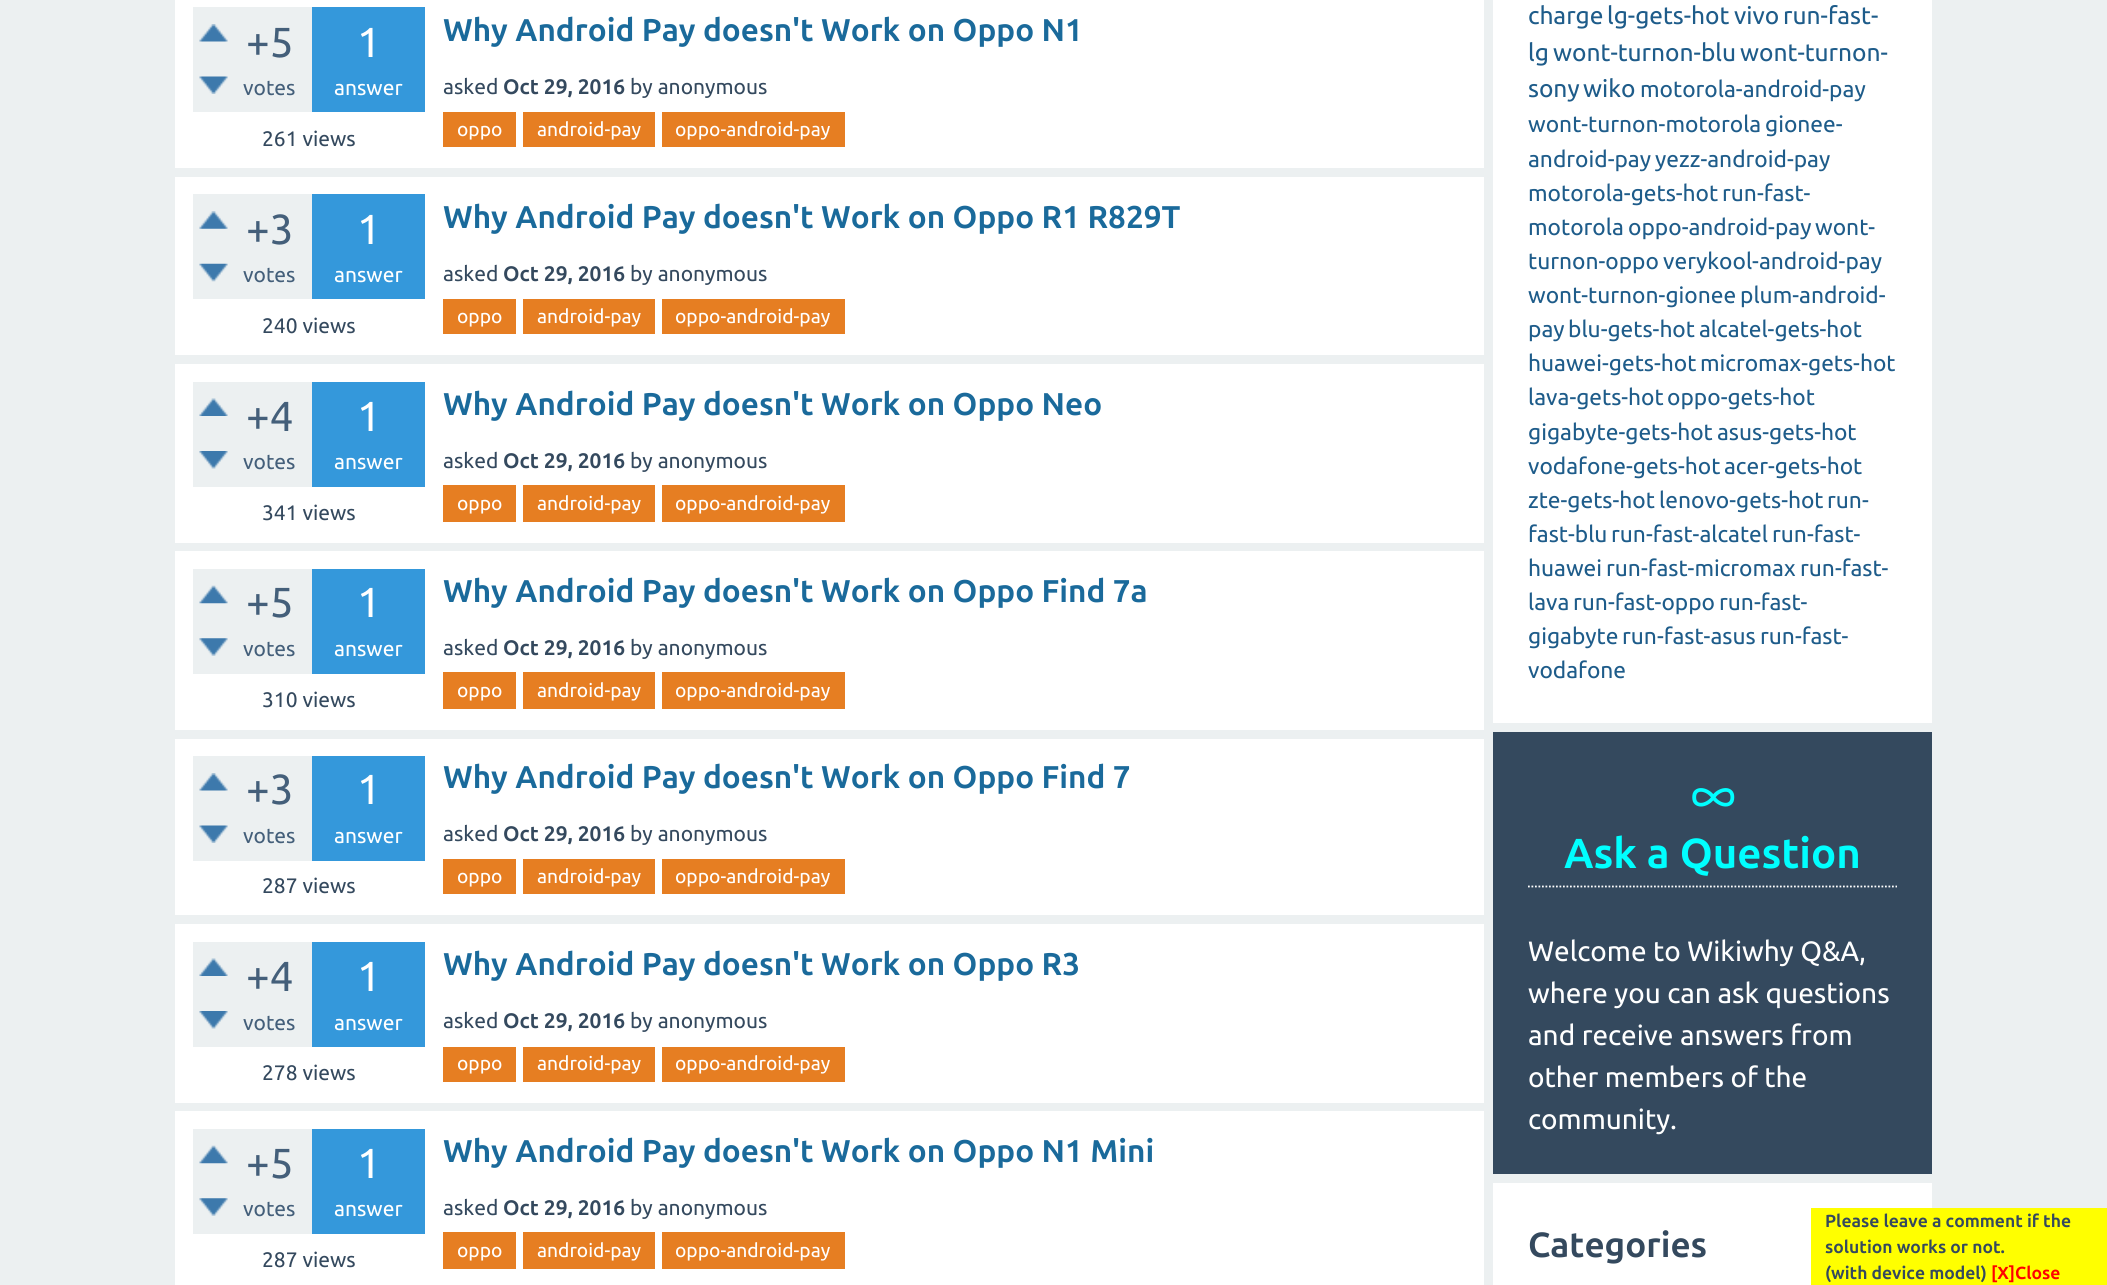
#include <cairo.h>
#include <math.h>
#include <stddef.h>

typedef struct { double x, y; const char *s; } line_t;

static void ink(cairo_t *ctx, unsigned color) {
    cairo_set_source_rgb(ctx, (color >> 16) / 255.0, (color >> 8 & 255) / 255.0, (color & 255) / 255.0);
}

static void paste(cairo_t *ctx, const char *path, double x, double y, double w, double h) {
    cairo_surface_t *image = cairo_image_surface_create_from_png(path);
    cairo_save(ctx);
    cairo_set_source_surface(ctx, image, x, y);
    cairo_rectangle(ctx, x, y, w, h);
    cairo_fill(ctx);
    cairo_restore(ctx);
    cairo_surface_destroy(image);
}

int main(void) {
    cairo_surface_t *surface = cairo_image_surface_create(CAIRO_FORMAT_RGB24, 2107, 1285);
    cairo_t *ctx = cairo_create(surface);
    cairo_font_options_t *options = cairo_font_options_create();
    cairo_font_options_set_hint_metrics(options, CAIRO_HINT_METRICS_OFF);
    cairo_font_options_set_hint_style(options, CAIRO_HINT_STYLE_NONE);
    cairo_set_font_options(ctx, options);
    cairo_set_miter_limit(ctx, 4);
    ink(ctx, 0xECF0F1);
    cairo_paint(ctx);
    ink(ctx, 0xFFFFFF);
    cairo_rectangle(ctx, 175, 0, 1309, 168);
    cairo_fill(ctx);
    ink(ctx, 0xECF0F1);
    cairo_rectangle(ctx, 193, 7, 119, 105);
    cairo_fill(ctx);
    paste(ctx, "media/1.png", 199, 24, 29, 18);
    paste(ctx, "media/2.png", 199, 76, 29, 18);
    cairo_select_font_face(ctx, "Ubuntu", CAIRO_FONT_SLANT_NORMAL, CAIRO_FONT_WEIGHT_NORMAL);
    cairo_set_font_size(ctx, 42);
    ink(ctx, 0x445F7A);
    cairo_move_to(ctx, 246, 57);
    cairo_show_text(ctx, "+5");
    cairo_set_font_size(ctx, 21);
    cairo_move_to(ctx, 243, 95);
    cairo_show_text(ctx, "votes");
    ink(ctx, 0x3498DB);
    cairo_rectangle(ctx, 312, 7, 113, 105);
    cairo_fill(ctx);
    cairo_set_font_size(ctx, 42);
    ink(ctx, 0xFFFFFF);
    cairo_move_to(ctx, 357, 57);
    cairo_show_text(ctx, "1");
    cairo_set_font_size(ctx, 21);
    cairo_move_to(ctx, 334, 95);
    cairo_show_text(ctx, "answer");
    ink(ctx, 0x34495E);
    cairo_move_to(ctx, 262, 146);
    cairo_show_text(ctx, "261 views");
    cairo_select_font_face(ctx, "Ubuntu", CAIRO_FONT_SLANT_NORMAL, CAIRO_FONT_WEIGHT_BOLD);
    cairo_set_font_size(ctx, 31.5);
    ink(ctx, 0x1A6A9B);
    cairo_move_to(ctx, 443, 41);
    cairo_show_text(ctx, "Why Android Pay doesn't Work on Oppo N1");
    cairo_select_font_face(ctx, "Ubuntu", CAIRO_FONT_SLANT_NORMAL, CAIRO_FONT_WEIGHT_NORMAL);
    cairo_set_font_size(ctx, 21);
    ink(ctx, 0x34495E);
    cairo_move_to(ctx, 443, 94);
    cairo_show_text(ctx, "asked");
    cairo_select_font_face(ctx, "Ubuntu", CAIRO_FONT_SLANT_NORMAL, CAIRO_FONT_WEIGHT_BOLD);
    cairo_move_to(ctx, 503, 94);
    cairo_show_text(ctx, "Oct 29, 2016");
    cairo_select_font_face(ctx, "Ubuntu", CAIRO_FONT_SLANT_NORMAL, CAIRO_FONT_WEIGHT_NORMAL);
    cairo_move_to(ctx, 630, 94);
    cairo_show_text(ctx, "by anonymous");
    ink(ctx, 0xE67E22);
    cairo_rectangle(ctx, 443, 112, 73, 35);
    cairo_fill(ctx);
    cairo_set_font_size(ctx, 19.25);
    ink(ctx, 0xFFFFFF);
    cairo_move_to(ctx, 457, 136);
    cairo_show_text(ctx, "oppo");
    ink(ctx, 0xE67E22);
    cairo_rectangle(ctx, 523, 112, 132, 35);
    cairo_fill(ctx);
    ink(ctx, 0xFFFFFF);
    cairo_move_to(ctx, 537, 136);
    cairo_show_text(ctx, "android-pay");
    ink(ctx, 0xE67E22);
    cairo_rectangle(ctx, 662, 112, 183, 35);
    cairo_fill(ctx);
    ink(ctx, 0xFFFFFF);
    cairo_move_to(ctx, 675, 136);
    cairo_show_text(ctx, "oppo-android-pay");
    cairo_rectangle(ctx, 175, 177, 1309, 178);
    cairo_fill(ctx);
    ink(ctx, 0xECF0F1);
    cairo_rectangle(ctx, 193, 194, 119, 105);
    cairo_fill(ctx);
    paste(ctx, "media/3.png", 199, 211, 29, 18);
    paste(ctx, "media/4.png", 199, 263, 29, 19);
    cairo_set_font_size(ctx, 42);
    ink(ctx, 0x445F7A);
    cairo_move_to(ctx, 246, 244);
    cairo_show_text(ctx, "+3");
    cairo_set_font_size(ctx, 21);
    cairo_move_to(ctx, 243, 282);
    cairo_show_text(ctx, "votes");
    ink(ctx, 0x3498DB);
    cairo_rectangle(ctx, 312, 194, 113, 105);
    cairo_fill(ctx);
    cairo_set_font_size(ctx, 42);
    ink(ctx, 0xFFFFFF);
    cairo_move_to(ctx, 357, 244);
    cairo_show_text(ctx, "1");
    cairo_set_font_size(ctx, 21);
    cairo_move_to(ctx, 334, 282);
    cairo_show_text(ctx, "answer");
    ink(ctx, 0x34495E);
    cairo_move_to(ctx, 262, 333);
    cairo_show_text(ctx, "240 views");
    cairo_select_font_face(ctx, "Ubuntu", CAIRO_FONT_SLANT_NORMAL, CAIRO_FONT_WEIGHT_BOLD);
    cairo_set_font_size(ctx, 31.5);
    ink(ctx, 0x1A6A9B);
    cairo_move_to(ctx, 443, 228);
    cairo_show_text(ctx, "Why Android Pay doesn't Work on Oppo R1 R829T");
    cairo_select_font_face(ctx, "Ubuntu", CAIRO_FONT_SLANT_NORMAL, CAIRO_FONT_WEIGHT_NORMAL);
    cairo_set_font_size(ctx, 21);
    ink(ctx, 0x34495E);
    cairo_move_to(ctx, 443, 281);
    cairo_show_text(ctx, "asked");
    cairo_select_font_face(ctx, "Ubuntu", CAIRO_FONT_SLANT_NORMAL, CAIRO_FONT_WEIGHT_BOLD);
    cairo_move_to(ctx, 503, 281);
    cairo_show_text(ctx, "Oct 29, 2016");
    cairo_select_font_face(ctx, "Ubuntu", CAIRO_FONT_SLANT_NORMAL, CAIRO_FONT_WEIGHT_NORMAL);
    cairo_move_to(ctx, 630, 281);
    cairo_show_text(ctx, "by anonymous");
    ink(ctx, 0xE67E22);
    cairo_rectangle(ctx, 443, 299, 73, 35);
    cairo_fill(ctx);
    cairo_set_font_size(ctx, 19.25);
    ink(ctx, 0xFFFFFF);
    cairo_move_to(ctx, 457, 323);
    cairo_show_text(ctx, "oppo");
    ink(ctx, 0xE67E22);
    cairo_rectangle(ctx, 523, 299, 132, 35);
    cairo_fill(ctx);
    ink(ctx, 0xFFFFFF);
    cairo_move_to(ctx, 537, 323);
    cairo_show_text(ctx, "android-pay");
    ink(ctx, 0xE67E22);
    cairo_rectangle(ctx, 662, 299, 183, 35);
    cairo_fill(ctx);
    ink(ctx, 0xFFFFFF);
    cairo_move_to(ctx, 675, 323);
    cairo_show_text(ctx, "oppo-android-pay");
    cairo_rectangle(ctx, 175, 364, 1309, 179);
    cairo_fill(ctx);
    ink(ctx, 0xECF0F1);
    cairo_rectangle(ctx, 193, 382, 119, 105);
    cairo_fill(ctx);
    paste(ctx, "media/5.png", 199, 398, 29, 18);
    paste(ctx, "media/6.png", 199, 451, 29, 18);
    cairo_set_font_size(ctx, 42);
    ink(ctx, 0x445F7A);
    cairo_move_to(ctx, 246, 431);
    cairo_show_text(ctx, "+4");
    cairo_set_font_size(ctx, 21);
    cairo_move_to(ctx, 243, 469);
    cairo_show_text(ctx, "votes");
    ink(ctx, 0x3498DB);
    cairo_rectangle(ctx, 312, 382, 113, 105);
    cairo_fill(ctx);
    cairo_set_font_size(ctx, 42);
    ink(ctx, 0xFFFFFF);
    cairo_move_to(ctx, 357, 431);
    cairo_show_text(ctx, "1");
    cairo_set_font_size(ctx, 21);
    cairo_move_to(ctx, 334, 469);
    cairo_show_text(ctx, "answer");
    ink(ctx, 0x34495E);
    cairo_move_to(ctx, 262, 520);
    cairo_show_text(ctx, "341 views");
    cairo_select_font_face(ctx, "Ubuntu", CAIRO_FONT_SLANT_NORMAL, CAIRO_FONT_WEIGHT_BOLD);
    cairo_set_font_size(ctx, 31.5);
    ink(ctx, 0x1A6A9B);
    cairo_move_to(ctx, 443, 415);
    cairo_show_text(ctx, "Why Android Pay doesn't Work on Oppo Neo");
    cairo_select_font_face(ctx, "Ubuntu", CAIRO_FONT_SLANT_NORMAL, CAIRO_FONT_WEIGHT_NORMAL);
    cairo_set_font_size(ctx, 21);
    ink(ctx, 0x34495E);
    cairo_move_to(ctx, 443, 468);
    cairo_show_text(ctx, "asked");
    cairo_select_font_face(ctx, "Ubuntu", CAIRO_FONT_SLANT_NORMAL, CAIRO_FONT_WEIGHT_BOLD);
    cairo_move_to(ctx, 503, 468);
    cairo_show_text(ctx, "Oct 29, 2016");
    cairo_select_font_face(ctx, "Ubuntu", CAIRO_FONT_SLANT_NORMAL, CAIRO_FONT_WEIGHT_NORMAL);
    cairo_move_to(ctx, 630, 468);
    cairo_show_text(ctx, "by anonymous");
    ink(ctx, 0xE67E22);
    cairo_rectangle(ctx, 443, 485, 73, 37);
    cairo_fill(ctx);
    cairo_set_font_size(ctx, 19.25);
    ink(ctx, 0xFFFFFF);
    cairo_move_to(ctx, 457, 510);
    cairo_show_text(ctx, "oppo");
    ink(ctx, 0xE67E22);
    cairo_rectangle(ctx, 523, 485, 132, 37);
    cairo_fill(ctx);
    ink(ctx, 0xFFFFFF);
    cairo_move_to(ctx, 537, 510);
    cairo_show_text(ctx, "android-pay");
    ink(ctx, 0xE67E22);
    cairo_rectangle(ctx, 662, 485, 183, 37);
    cairo_fill(ctx);
    ink(ctx, 0xFFFFFF);
    cairo_move_to(ctx, 675, 510);
    cairo_show_text(ctx, "oppo-android-pay");
    cairo_rectangle(ctx, 175, 551, 1309, 179);
    cairo_fill(ctx);
    ink(ctx, 0xECF0F1);
    cairo_rectangle(ctx, 193, 569, 119, 105);
    cairo_fill(ctx);
    paste(ctx, "media/7.png", 199, 585, 29, 19);
    paste(ctx, "media/8.png", 199, 638, 29, 18);
    cairo_set_font_size(ctx, 42);
    ink(ctx, 0x445F7A);
    cairo_move_to(ctx, 246, 617);
    cairo_show_text(ctx, "+5");
    cairo_set_font_size(ctx, 21);
    cairo_move_to(ctx, 243, 656);
    cairo_show_text(ctx, "votes");
    ink(ctx, 0x3498DB);
    cairo_rectangle(ctx, 312, 569, 113, 105);
    cairo_fill(ctx);
    cairo_set_font_size(ctx, 42);
    ink(ctx, 0xFFFFFF);
    cairo_move_to(ctx, 357, 617);
    cairo_show_text(ctx, "1");
    cairo_set_font_size(ctx, 21);
    cairo_move_to(ctx, 334, 656);
    cairo_show_text(ctx, "answer");
    ink(ctx, 0x34495E);
    cairo_move_to(ctx, 262, 707);
    cairo_show_text(ctx, "310 views");
    cairo_select_font_face(ctx, "Ubuntu", CAIRO_FONT_SLANT_NORMAL, CAIRO_FONT_WEIGHT_BOLD);
    cairo_set_font_size(ctx, 31.5);
    ink(ctx, 0x1A6A9B);
    cairo_move_to(ctx, 443, 602);
    cairo_show_text(ctx, "Why Android Pay doesn't Work on Oppo Find 7a");
    cairo_select_font_face(ctx, "Ubuntu", CAIRO_FONT_SLANT_NORMAL, CAIRO_FONT_WEIGHT_NORMAL);
    cairo_set_font_size(ctx, 21);
    ink(ctx, 0x34495E);
    cairo_move_to(ctx, 443, 655);
    cairo_show_text(ctx, "asked");
    cairo_select_font_face(ctx, "Ubuntu", CAIRO_FONT_SLANT_NORMAL, CAIRO_FONT_WEIGHT_BOLD);
    cairo_move_to(ctx, 503, 655);
    cairo_show_text(ctx, "Oct 29, 2016");
    cairo_select_font_face(ctx, "Ubuntu", CAIRO_FONT_SLANT_NORMAL, CAIRO_FONT_WEIGHT_NORMAL);
    cairo_move_to(ctx, 630, 655);
    cairo_show_text(ctx, "by anonymous");
    ink(ctx, 0xE67E22);
    cairo_rectangle(ctx, 443, 672, 73, 37);
    cairo_fill(ctx);
    cairo_set_font_size(ctx, 19.25);
    ink(ctx, 0xFFFFFF);
    cairo_move_to(ctx, 457, 697);
    cairo_show_text(ctx, "oppo");
    ink(ctx, 0xE67E22);
    cairo_rectangle(ctx, 523, 672, 132, 37);
    cairo_fill(ctx);
    ink(ctx, 0xFFFFFF);
    cairo_move_to(ctx, 537, 697);
    cairo_show_text(ctx, "android-pay");
    ink(ctx, 0xE67E22);
    cairo_rectangle(ctx, 662, 672, 183, 37);
    cairo_fill(ctx);
    ink(ctx, 0xFFFFFF);
    cairo_move_to(ctx, 675, 697);
    cairo_show_text(ctx, "oppo-android-pay");
    cairo_rectangle(ctx, 175, 739, 1309, 176);
    cairo_fill(ctx);
    ink(ctx, 0xECF0F1);
    cairo_rectangle(ctx, 193, 756, 119, 105);
    cairo_fill(ctx);
    paste(ctx, "media/1.png", 199, 773, 29, 18);
    paste(ctx, "media/2.png", 199, 825, 29, 18);
    cairo_set_font_size(ctx, 42);
    ink(ctx, 0x445F7A);
    cairo_move_to(ctx, 246, 804);
    cairo_show_text(ctx, "+3");
    cairo_set_font_size(ctx, 21);
    cairo_move_to(ctx, 243, 843);
    cairo_show_text(ctx, "votes");
    ink(ctx, 0x3498DB);
    cairo_rectangle(ctx, 312, 756, 113, 105);
    cairo_fill(ctx);
    cairo_set_font_size(ctx, 42);
    ink(ctx, 0xFFFFFF);
    cairo_move_to(ctx, 357, 804);
    cairo_show_text(ctx, "1");
    cairo_set_font_size(ctx, 21);
    cairo_move_to(ctx, 334, 843);
    cairo_show_text(ctx, "answer");
    ink(ctx, 0x34495E);
    cairo_move_to(ctx, 262, 893);
    cairo_show_text(ctx, "287 views");
    cairo_select_font_face(ctx, "Ubuntu", CAIRO_FONT_SLANT_NORMAL, CAIRO_FONT_WEIGHT_BOLD);
    cairo_set_font_size(ctx, 31.5);
    ink(ctx, 0x1A6A9B);
    cairo_move_to(ctx, 443, 788);
    cairo_show_text(ctx, "Why Android Pay doesn't Work on Oppo Find 7");
    cairo_select_font_face(ctx, "Ubuntu", CAIRO_FONT_SLANT_NORMAL, CAIRO_FONT_WEIGHT_NORMAL);
    cairo_set_font_size(ctx, 21);
    ink(ctx, 0x34495E);
    cairo_move_to(ctx, 443, 841);
    cairo_show_text(ctx, "asked");
    cairo_select_font_face(ctx, "Ubuntu", CAIRO_FONT_SLANT_NORMAL, CAIRO_FONT_WEIGHT_BOLD);
    cairo_move_to(ctx, 503, 841);
    cairo_show_text(ctx, "Oct 29, 2016");
    cairo_select_font_face(ctx, "Ubuntu", CAIRO_FONT_SLANT_NORMAL, CAIRO_FONT_WEIGHT_NORMAL);
    cairo_move_to(ctx, 630, 841);
    cairo_show_text(ctx, "by anonymous");
    ink(ctx, 0xE67E22);
    cairo_rectangle(ctx, 443, 859, 73, 35);
    cairo_fill(ctx);
    cairo_set_font_size(ctx, 19.25);
    ink(ctx, 0xFFFFFF);
    cairo_move_to(ctx, 457, 883);
    cairo_show_text(ctx, "oppo");
    ink(ctx, 0xE67E22);
    cairo_rectangle(ctx, 523, 859, 132, 35);
    cairo_fill(ctx);
    ink(ctx, 0xFFFFFF);
    cairo_move_to(ctx, 537, 883);
    cairo_show_text(ctx, "android-pay");
    ink(ctx, 0xE67E22);
    cairo_rectangle(ctx, 662, 859, 183, 35);
    cairo_fill(ctx);
    ink(ctx, 0xFFFFFF);
    cairo_move_to(ctx, 675, 883);
    cairo_show_text(ctx, "oppo-android-pay");
    cairo_rectangle(ctx, 175, 924, 1309, 179);
    cairo_fill(ctx);
    ink(ctx, 0xECF0F1);
    cairo_rectangle(ctx, 193, 942, 119, 105);
    cairo_fill(ctx);
    paste(ctx, "media/5.png", 199, 958, 29, 18);
    paste(ctx, "media/6.png", 199, 1011, 29, 18);
    cairo_set_font_size(ctx, 42);
    ink(ctx, 0x445F7A);
    cairo_move_to(ctx, 246, 991);
    cairo_show_text(ctx, "+4");
    cairo_set_font_size(ctx, 21);
    cairo_move_to(ctx, 243, 1030);
    cairo_show_text(ctx, "votes");
    ink(ctx, 0x3498DB);
    cairo_rectangle(ctx, 312, 942, 113, 105);
    cairo_fill(ctx);
    cairo_set_font_size(ctx, 42);
    ink(ctx, 0xFFFFFF);
    cairo_move_to(ctx, 357, 991);
    cairo_show_text(ctx, "1");
    cairo_set_font_size(ctx, 21);
    cairo_move_to(ctx, 334, 1030);
    cairo_show_text(ctx, "answer");
    ink(ctx, 0x34495E);
    cairo_move_to(ctx, 262, 1080);
    cairo_show_text(ctx, "278 views");
    cairo_select_font_face(ctx, "Ubuntu", CAIRO_FONT_SLANT_NORMAL, CAIRO_FONT_WEIGHT_BOLD);
    cairo_set_font_size(ctx, 31.5);
    ink(ctx, 0x1A6A9B);
    cairo_move_to(ctx, 443, 975);
    cairo_show_text(ctx, "Why Android Pay doesn't Work on Oppo R3");
    cairo_select_font_face(ctx, "Ubuntu", CAIRO_FONT_SLANT_NORMAL, CAIRO_FONT_WEIGHT_NORMAL);
    cairo_set_font_size(ctx, 21);
    ink(ctx, 0x34495E);
    cairo_move_to(ctx, 443, 1028);
    cairo_show_text(ctx, "asked");
    cairo_select_font_face(ctx, "Ubuntu", CAIRO_FONT_SLANT_NORMAL, CAIRO_FONT_WEIGHT_BOLD);
    cairo_move_to(ctx, 503, 1028);
    cairo_show_text(ctx, "Oct 29, 2016");
    cairo_select_font_face(ctx, "Ubuntu", CAIRO_FONT_SLANT_NORMAL, CAIRO_FONT_WEIGHT_NORMAL);
    cairo_move_to(ctx, 630, 1028);
    cairo_show_text(ctx, "by anonymous");
    ink(ctx, 0xE67E22);
    cairo_rectangle(ctx, 443, 1047, 73, 35);
    cairo_fill(ctx);
    cairo_set_font_size(ctx, 19.25);
    ink(ctx, 0xFFFFFF);
    cairo_move_to(ctx, 457, 1070);
    cairo_show_text(ctx, "oppo");
    ink(ctx, 0xE67E22);
    cairo_rectangle(ctx, 523, 1047, 132, 35);
    cairo_fill(ctx);
    ink(ctx, 0xFFFFFF);
    cairo_move_to(ctx, 537, 1070);
    cairo_show_text(ctx, "android-pay");
    ink(ctx, 0xE67E22);
    cairo_rectangle(ctx, 662, 1047, 183, 35);
    cairo_fill(ctx);
    ink(ctx, 0xFFFFFF);
    cairo_move_to(ctx, 675, 1070);
    cairo_show_text(ctx, "oppo-android-pay");
    cairo_rectangle(ctx, 175, 1111, 1309, 174);
    cairo_fill(ctx);
    ink(ctx, 0xECF0F1);
    cairo_rectangle(ctx, 193, 1129, 119, 105);
    cairo_fill(ctx);
    paste(ctx, "media/7.png", 199, 1145, 29, 19);
    paste(ctx, "media/8.png", 199, 1198, 29, 18);
    cairo_set_font_size(ctx, 42);
    ink(ctx, 0x445F7A);
    cairo_move_to(ctx, 246, 1178);
    cairo_show_text(ctx, "+5");
    cairo_set_font_size(ctx, 21);
    cairo_move_to(ctx, 243, 1216);
    cairo_show_text(ctx, "votes");
    ink(ctx, 0x3498DB);
    cairo_rectangle(ctx, 312, 1129, 113, 105);
    cairo_fill(ctx);
    cairo_set_font_size(ctx, 42);
    ink(ctx, 0xFFFFFF);
    cairo_move_to(ctx, 357, 1178);
    cairo_show_text(ctx, "1");
    cairo_set_font_size(ctx, 21);
    cairo_move_to(ctx, 334, 1216);
    cairo_show_text(ctx, "answer");
    ink(ctx, 0x34495E);
    cairo_move_to(ctx, 262, 1267);
    cairo_show_text(ctx, "287 views");
    cairo_select_font_face(ctx, "Ubuntu", CAIRO_FONT_SLANT_NORMAL, CAIRO_FONT_WEIGHT_BOLD);
    cairo_set_font_size(ctx, 31.5);
    ink(ctx, 0x1A6A9B);
    cairo_move_to(ctx, 443, 1162);
    cairo_show_text(ctx, "Why Android Pay doesn't Work on Oppo N1 Mini");
    cairo_select_font_face(ctx, "Ubuntu", CAIRO_FONT_SLANT_NORMAL, CAIRO_FONT_WEIGHT_NORMAL);
    cairo_set_font_size(ctx, 21);
    ink(ctx, 0x34495E);
    cairo_move_to(ctx, 443, 1215);
    cairo_show_text(ctx, "asked");
    cairo_select_font_face(ctx, "Ubuntu", CAIRO_FONT_SLANT_NORMAL, CAIRO_FONT_WEIGHT_BOLD);
    cairo_move_to(ctx, 503, 1215);
    cairo_show_text(ctx, "Oct 29, 2016");
    cairo_select_font_face(ctx, "Ubuntu", CAIRO_FONT_SLANT_NORMAL, CAIRO_FONT_WEIGHT_NORMAL);
    cairo_move_to(ctx, 630, 1215);
    cairo_show_text(ctx, "by anonymous");
    ink(ctx, 0xE67E22);
    cairo_rectangle(ctx, 443, 1232, 73, 37);
    cairo_fill(ctx);
    cairo_set_font_size(ctx, 19.25);
    ink(ctx, 0xFFFFFF);
    cairo_move_to(ctx, 457, 1257);
    cairo_show_text(ctx, "oppo");
    ink(ctx, 0xE67E22);
    cairo_rectangle(ctx, 523, 1232, 132, 37);
    cairo_fill(ctx);
    ink(ctx, 0xFFFFFF);
    cairo_move_to(ctx, 537, 1257);
    cairo_show_text(ctx, "android-pay");
    ink(ctx, 0xE67E22);
    cairo_rectangle(ctx, 662, 1232, 183, 37);
    cairo_fill(ctx);
    ink(ctx, 0xFFFFFF);
    cairo_move_to(ctx, 675, 1257);
    cairo_show_text(ctx, "oppo-android-pay");
    cairo_rectangle(ctx, 1493, 0, 439, 723);
    cairo_fill(ctx);
    cairo_set_font_size(ctx, 24.5);
    ink(ctx, 0x1E5C8A);
    {
        static const line_t items[] = {
            {1528, 24, "charge"},
            {1607, 24, "lg-gets-hot"},
            {1734, 24, "vivo"},
            {1783, 24, "run-fast-"},
            {1528, 61, "lg"},
            {1553, 61, "wont-turnon-blu"},
            {1740, 61, "wont-turnon-"},
            {1528, 97, "sony"},
            {1583, 97, "wiko"},
        };
        for (size_t i = 0; i < sizeof items / sizeof *items; i++) {
            cairo_move_to(ctx, items[i].x, items[i].y);
            cairo_show_text(ctx, items[i].s);
        }
    }
    cairo_set_font_size(ctx, 22.75);
    {
        static const line_t items[] = {
            {1640, 97, "motorola-android-pay"},
            {1528, 132, "wont-turnon-motorola"},
            {1765, 132, "gionee-"},
            {1528, 167, "android-pay"},
            {1655, 167, "yezz-android-pay"},
            {1528, 201, "motorola-gets-hot"},
            {1722, 201, "run-fast-"},
            {1528, 235, "motorola"},
            {1628, 235, "oppo-android-pay"},
            {1815, 235, "wont-"},
            {1528, 269, "turnon-oppo"},
            {1663, 269, "verykool-android-pay"},
            {1528, 303, "wont-turnon-gionee"},
            {1740, 303, "plum-android-"},
            {1528, 337, "pay"},
            {1568, 337, "blu-gets-hot"},
            {1699, 337, "alcatel-gets-hot"},
            {1528, 371, "huawei-gets-hot"},
            {1700, 371, "micromax-gets-hot"},
            {1528, 405, "lava-gets-hot"},
            {1667, 405, "oppo-gets-hot"},
            {1528, 440, "gigabyte-gets-hot"},
            {1717, 440, "asus-gets-hot"},
            {1528, 474, "vodafone-gets-hot"},
            {1724, 474, "acer-gets-hot"},
            {1528, 508, "zte-gets-hot"},
            {1659, 508, "lenovo-gets-hot"},
            {1827, 508, "run-"},
            {1528, 542, "fast-blu"},
            {1611, 542, "run-fast-alcatel"},
            {1772, 542, "run-fast-"},
            {1528, 576, "huawei"},
            {1606, 576, "run-fast-micromax"},
            {1800, 576, "run-fast-"},
            {1528, 610, "lava"},
            {1573, 610, "run-fast-oppo"},
            {1719, 610, "run-fast-"},
            {1528, 644, "gigabyte"},
            {1622, 644, "run-fast-asus"},
            {1760, 644, "run-fast-"},
            {1528, 678, "vodafone"},
        };
        for (size_t i = 0; i < sizeof items / sizeof *items; i++) {
            cairo_move_to(ctx, items[i].x, items[i].y);
            cairo_show_text(ctx, items[i].s);
        }
    }
    ink(ctx, 0x34495E);
    cairo_rectangle(ctx, 1493, 732, 439, 442);
    cairo_fill(ctx);
    cairo_new_path(ctx);
    cairo_move_to(ctx, 1528, 886.5);
    cairo_line_to(ctx, 1897, 886.5);
    ink(ctx, 0xFFFFFF);
    cairo_set_line_width(ctx, 1.8);
    cairo_set_dash(ctx, (double[]){1.75, 1.75}, 2, 0);
    cairo_stroke(ctx);
    paste(ctx, "media/9.png", 1692, 788, 43, 19);
    cairo_select_font_face(ctx, "Ubuntu", CAIRO_FONT_SLANT_NORMAL, CAIRO_FONT_WEIGHT_BOLD);
    cairo_set_font_size(ctx, 42);
    ink(ctx, 0x00FFFF);
    cairo_move_to(ctx, 1564, 868);
    cairo_show_text(ctx, "Ask a Question");
    cairo_select_font_face(ctx, "Ubuntu", CAIRO_FONT_SLANT_NORMAL, CAIRO_FONT_WEIGHT_NORMAL);
    cairo_set_font_size(ctx, 28);
    ink(ctx, 0xFFFFFF);
    {
        static const line_t items[] = {
            {1528, 961, "Welcome to Wikiwhy Q&A,"},
            {1528, 1003, "where you can ask questions"},
            {1528, 1045, "and receive answers from"},
            {1528, 1087, "other members of the"},
            {1528, 1129, "community."},
        };
        for (size_t i = 0; i < sizeof items / sizeof *items; i++) {
            cairo_move_to(ctx, items[i].x, items[i].y);
            cairo_show_text(ctx, items[i].s);
        }
    }
    cairo_rectangle(ctx, 1493, 1183, 439, 102);
    cairo_fill(ctx);
    cairo_select_font_face(ctx, "Ubuntu", CAIRO_FONT_SLANT_NORMAL, CAIRO_FONT_WEIGHT_BOLD);
    cairo_set_font_size(ctx, 35);
    ink(ctx, 0x34495E);
    cairo_move_to(ctx, 1528, 1257);
    cairo_show_text(ctx, "Categories");
    ink(ctx, 0xFFFF00);
    cairo_rectangle(ctx, 1811, 1208, 296, 77);
    cairo_fill(ctx);
    cairo_set_font_size(ctx, 17.5);
    ink(ctx, 0x34495E);
    {
        static const line_t items[] = {
            {1825, 1227, "Please leave a comment if the"},
            {1825, 1253, "solution works or not."},
            {1825, 1279, "(with device model)"},
        };
        for (size_t i = 0; i < sizeof items / sizeof *items; i++) {
            cairo_move_to(ctx, items[i].x, items[i].y);
            cairo_show_text(ctx, items[i].s);
        }
    }
    ink(ctx, 0xFF0000);
    cairo_move_to(ctx, 1991, 1279);
    cairo_show_text(ctx, "[X]Close");
    cairo_surface_write_to_png(surface, "image.png");
    cairo_font_options_destroy(options);
    cairo_destroy(ctx);
    cairo_surface_destroy(surface);
    return 0;
}
